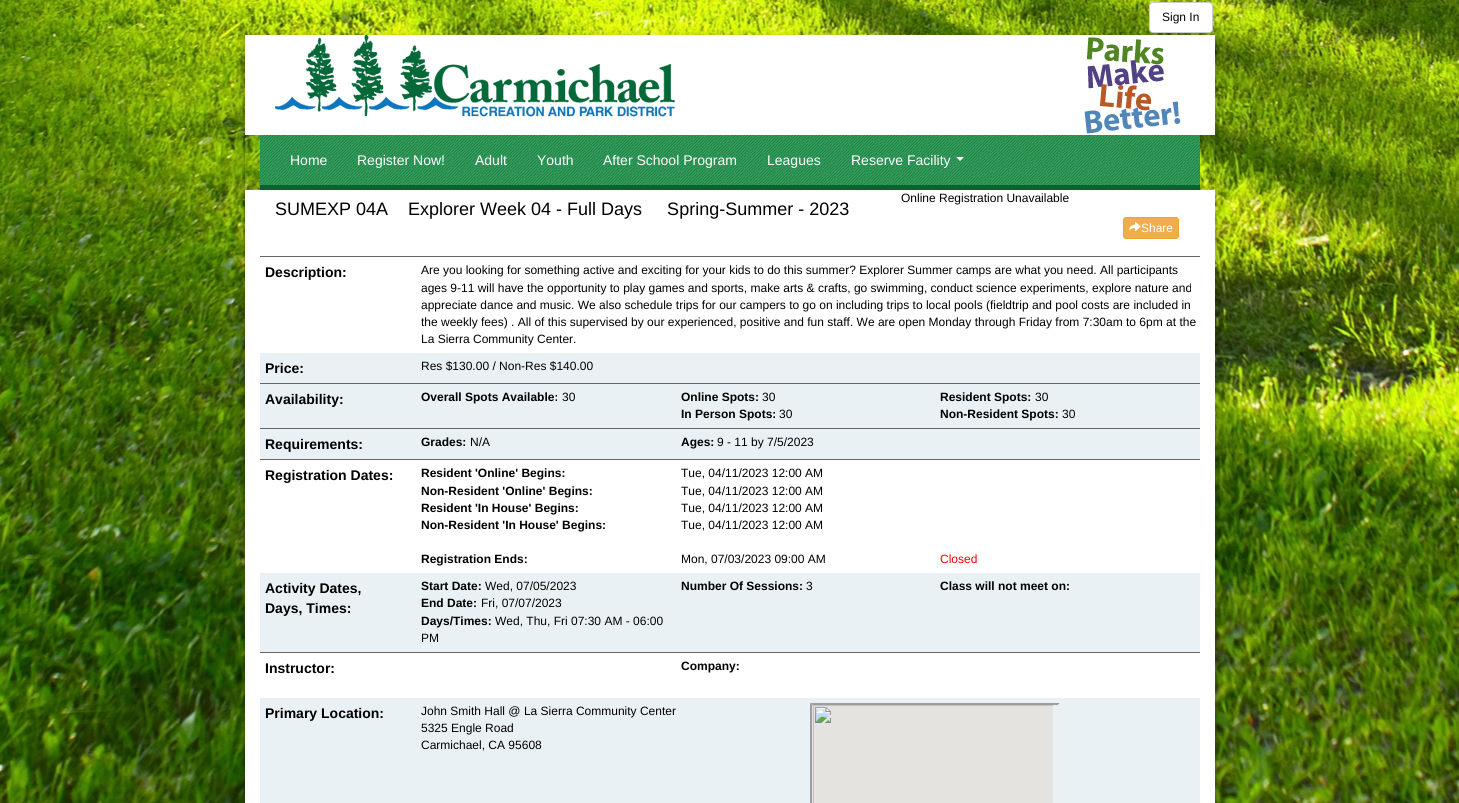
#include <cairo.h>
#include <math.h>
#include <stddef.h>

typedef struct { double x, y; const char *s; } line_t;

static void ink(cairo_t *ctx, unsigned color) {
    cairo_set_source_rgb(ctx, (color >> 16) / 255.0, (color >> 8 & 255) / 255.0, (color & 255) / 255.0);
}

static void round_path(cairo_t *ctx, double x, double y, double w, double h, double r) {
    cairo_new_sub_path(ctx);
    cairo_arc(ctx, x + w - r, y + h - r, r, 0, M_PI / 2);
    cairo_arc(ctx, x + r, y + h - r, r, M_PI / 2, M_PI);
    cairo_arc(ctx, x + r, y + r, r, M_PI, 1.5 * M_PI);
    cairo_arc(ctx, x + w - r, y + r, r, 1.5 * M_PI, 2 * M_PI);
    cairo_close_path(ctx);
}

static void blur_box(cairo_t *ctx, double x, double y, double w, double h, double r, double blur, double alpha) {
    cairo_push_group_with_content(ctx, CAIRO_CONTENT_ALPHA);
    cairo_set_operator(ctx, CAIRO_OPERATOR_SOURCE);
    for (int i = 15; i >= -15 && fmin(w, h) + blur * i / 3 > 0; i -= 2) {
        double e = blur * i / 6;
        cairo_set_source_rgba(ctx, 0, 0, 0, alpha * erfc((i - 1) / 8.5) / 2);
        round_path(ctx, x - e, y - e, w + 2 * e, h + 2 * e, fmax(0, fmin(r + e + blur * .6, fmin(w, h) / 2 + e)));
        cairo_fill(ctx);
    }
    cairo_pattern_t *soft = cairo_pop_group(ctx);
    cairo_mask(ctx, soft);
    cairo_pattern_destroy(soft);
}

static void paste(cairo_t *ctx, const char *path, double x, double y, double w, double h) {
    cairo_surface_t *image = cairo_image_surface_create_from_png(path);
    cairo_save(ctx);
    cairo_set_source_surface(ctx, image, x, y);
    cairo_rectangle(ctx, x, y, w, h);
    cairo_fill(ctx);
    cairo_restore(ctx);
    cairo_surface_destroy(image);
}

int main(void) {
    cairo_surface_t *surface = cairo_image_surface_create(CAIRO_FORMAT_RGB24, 1459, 803);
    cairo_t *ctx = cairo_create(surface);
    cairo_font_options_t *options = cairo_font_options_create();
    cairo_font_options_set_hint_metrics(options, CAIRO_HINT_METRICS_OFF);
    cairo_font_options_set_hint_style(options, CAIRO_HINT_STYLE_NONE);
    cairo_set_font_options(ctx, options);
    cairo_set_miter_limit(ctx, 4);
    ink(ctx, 0xFFFFFF);
    cairo_paint(ctx);
    paste(ctx, "media/1.png", 0, 0, 1459, 803);
    cairo_save(ctx);
    cairo_set_fill_rule(ctx, CAIRO_FILL_RULE_EVEN_ODD);
    cairo_new_path(ctx);
    cairo_move_to(ctx, 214, 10);
    cairo_line_to(ctx, 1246, 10);
    cairo_line_to(ctx, 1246, 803);
    cairo_line_to(ctx, 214, 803);
    cairo_close_path(ctx);
    cairo_move_to(ctx, 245, 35);
    cairo_line_to(ctx, 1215, 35);
    cairo_line_to(ctx, 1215, 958);
    cairo_line_to(ctx, 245, 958);
    cairo_close_path(ctx);
    cairo_clip(ctx);
    ink(ctx, 0x000000);
    blur_box(ctx, 245, 41, 970, 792, 0, 10, 0.19);
    cairo_restore(ctx);
    cairo_save(ctx);
    cairo_set_fill_rule(ctx, CAIRO_FILL_RULE_EVEN_ODD);
    cairo_new_path(ctx);
    cairo_move_to(ctx, 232, 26);
    cairo_line_to(ctx, 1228, 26);
    cairo_line_to(ctx, 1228, 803);
    cairo_line_to(ctx, 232, 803);
    cairo_close_path(ctx);
    cairo_move_to(ctx, 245, 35);
    cairo_line_to(ctx, 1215, 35);
    cairo_line_to(ctx, 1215, 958);
    cairo_line_to(ctx, 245, 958);
    cairo_close_path(ctx);
    cairo_clip(ctx);
    ink(ctx, 0x000000);
    blur_box(ctx, 245, 39, 970, 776, 0, 4, 0.2);
    cairo_restore(ctx);
    ink(ctx, 0xFFFFFF);
    round_path(ctx, 1149.5, 2.5, 63, 30, 3.5);
    cairo_fill_preserve(ctx);
    ink(ctx, 0xCCCCCC);
    cairo_set_line_width(ctx, 1);
    cairo_stroke(ctx);
    cairo_select_font_face(ctx, "Liberation Sans", CAIRO_FONT_SLANT_NORMAL, CAIRO_FONT_WEIGHT_NORMAL);
    cairo_set_font_size(ctx, 12);
    ink(ctx, 0x000000);
    cairo_move_to(ctx, 1162, 21);
    cairo_show_text(ctx, "Sign In");
    ink(ctx, 0xFFFFFF);
    cairo_rectangle(ctx, 245, 35, 970, 100);
    cairo_fill(ctx);
    paste(ctx, "media/2.png", 275, 35, 400, 82);
    paste(ctx, "media/3.png", 1084, 37, 97, 97);
    ink(ctx, 0x169546);
    cairo_rectangle(ctx, 260, 135, 940, 50);
    cairo_fill(ctx);
    paste(ctx, "media/4.png", 260, 135, 940, 50);
    ink(ctx, 0x0E612E);
    cairo_rectangle(ctx, 260, 185, 940, 5);
    cairo_fill(ctx);
    cairo_set_font_size(ctx, 14);
    ink(ctx, 0xFFFFFF);
    {
        static const line_t items[] = {
            {290, 165, "Home"},
            {357, 165, "Register Now!"},
            {475, 165, "Adult"},
            {537, 165, "Youth"},
            {603, 165, "After School Program"},
            {767, 165, "Leagues"},
            {851, 165, "Reserve Facility"},
        };
        for (size_t i = 0; i < sizeof items / sizeof *items; i++) {
            cairo_move_to(ctx, items[i].x, items[i].y);
            cairo_show_text(ctx, items[i].s);
        }
    }
    cairo_new_path(ctx);
    cairo_move_to(ctx, 956, 157);
    cairo_line_to(ctx, 964, 157);
    cairo_line_to(ctx, 960, 161);
    cairo_close_path(ctx);
    cairo_fill(ctx);
    cairo_rectangle(ctx, 245, 190, 970, 613);
    cairo_fill(ctx);
    cairo_set_font_size(ctx, 18);
    ink(ctx, 0x000000);
    cairo_move_to(ctx, 275, 215);
    cairo_show_text(ctx, "SUMEXP 04A    Explorer Week 04 - Full Days     Spring-Summer - 2023");
    cairo_set_font_size(ctx, 12);
    cairo_move_to(ctx, 901, 202);
    cairo_show_text(ctx, "Online Registration Unavailable");
    ink(ctx, 0xF0AD4E);
    round_path(ctx, 1123.5, 217.5, 55, 21, 2.5);
    cairo_fill_preserve(ctx);
    ink(ctx, 0xEEA236);
    cairo_stroke(ctx);
    paste(ctx, "media/5.png", 1129, 221, 12, 11);
    ink(ctx, 0xFFFFFF);
    cairo_move_to(ctx, 1141, 232);
    cairo_show_text(ctx, "Share");
    ink(ctx, 0x666666);
    cairo_rectangle(ctx, 260, 256, 940, 1);
    cairo_fill(ctx);
    cairo_select_font_face(ctx, "Liberation Sans", CAIRO_FONT_SLANT_NORMAL, CAIRO_FONT_WEIGHT_BOLD);
    cairo_set_font_size(ctx, 14);
    ink(ctx, 0x000000);
    cairo_move_to(ctx, 265, 277);
    cairo_show_text(ctx, "Description:");
    cairo_select_font_face(ctx, "Liberation Sans", CAIRO_FONT_SLANT_NORMAL, CAIRO_FONT_WEIGHT_NORMAL);
    cairo_set_font_size(ctx, 12);
    {
        static const line_t items[] = {
            {421, 274, "Are you looking for something active and exciting for your kids to do this summer? Explorer Summer camps are what you need. All participants"},
            {421, 292, "ages 9-11 will have the opportunity to play games and sports, make arts & crafts, go swimming, conduct science experiments, explore nature and"},
            {421, 309, "appreciate dance and music. We also schedule trips for our campers to go on including trips to local pools (fieldtrip and pool costs are included in"},
            {421, 326, "the weekly fees) . All of this supervised by our experienced, positive and fun staff. We are open Monday through Friday from 7:30am to 6pm at the"},
            {421, 343, "La Sierra Community Center."},
        };
        for (size_t i = 0; i < sizeof items / sizeof *items; i++) {
            cairo_move_to(ctx, items[i].x, items[i].y);
            cairo_show_text(ctx, items[i].s);
        }
    }
    ink(ctx, 0xEAF1F4);
    cairo_rectangle(ctx, 260, 353, 940, 30);
    cairo_fill(ctx);
    ink(ctx, 0x666666);
    cairo_rectangle(ctx, 260, 383, 940, 1);
    cairo_fill(ctx);
    cairo_select_font_face(ctx, "Liberation Sans", CAIRO_FONT_SLANT_NORMAL, CAIRO_FONT_WEIGHT_BOLD);
    cairo_set_font_size(ctx, 14);
    ink(ctx, 0x000000);
    cairo_move_to(ctx, 265, 373);
    cairo_show_text(ctx, "Price:");
    cairo_select_font_face(ctx, "Liberation Sans", CAIRO_FONT_SLANT_NORMAL, CAIRO_FONT_WEIGHT_NORMAL);
    cairo_set_font_size(ctx, 12);
    cairo_move_to(ctx, 421, 370);
    cairo_show_text(ctx, "Res $130.00 / Non-Res $140.00");
    ink(ctx, 0xEAF1F4);
    cairo_rectangle(ctx, 260, 384, 940, 44);
    cairo_fill(ctx);
    ink(ctx, 0x666666);
    cairo_rectangle(ctx, 260, 428, 940, 1);
    cairo_fill(ctx);
    cairo_select_font_face(ctx, "Liberation Sans", CAIRO_FONT_SLANT_NORMAL, CAIRO_FONT_WEIGHT_BOLD);
    cairo_set_font_size(ctx, 14);
    ink(ctx, 0x000000);
    cairo_move_to(ctx, 265, 404);
    cairo_show_text(ctx, "Availability:");
    cairo_set_font_size(ctx, 12);
    cairo_move_to(ctx, 421, 401);
    cairo_show_text(ctx, "Overall Spots Available:");
    cairo_select_font_face(ctx, "Liberation Sans", CAIRO_FONT_SLANT_NORMAL, CAIRO_FONT_WEIGHT_NORMAL);
    cairo_move_to(ctx, 562, 401);
    cairo_show_text(ctx, "30");
    cairo_select_font_face(ctx, "Liberation Sans", CAIRO_FONT_SLANT_NORMAL, CAIRO_FONT_WEIGHT_BOLD);
    cairo_move_to(ctx, 681, 401);
    cairo_show_text(ctx, "Online Spots:");
    cairo_select_font_face(ctx, "Liberation Sans", CAIRO_FONT_SLANT_NORMAL, CAIRO_FONT_WEIGHT_NORMAL);
    cairo_move_to(ctx, 762, 401);
    cairo_show_text(ctx, "30");
    cairo_select_font_face(ctx, "Liberation Sans", CAIRO_FONT_SLANT_NORMAL, CAIRO_FONT_WEIGHT_BOLD);
    cairo_move_to(ctx, 681, 418);
    cairo_show_text(ctx, "In Person Spots:");
    cairo_select_font_face(ctx, "Liberation Sans", CAIRO_FONT_SLANT_NORMAL, CAIRO_FONT_WEIGHT_NORMAL);
    cairo_move_to(ctx, 779, 418);
    cairo_show_text(ctx, "30");
    cairo_select_font_face(ctx, "Liberation Sans", CAIRO_FONT_SLANT_NORMAL, CAIRO_FONT_WEIGHT_BOLD);
    cairo_move_to(ctx, 940, 401);
    cairo_show_text(ctx, "Resident Spots:");
    cairo_select_font_face(ctx, "Liberation Sans", CAIRO_FONT_SLANT_NORMAL, CAIRO_FONT_WEIGHT_NORMAL);
    cairo_move_to(ctx, 1035, 401);
    cairo_show_text(ctx, "30");
    cairo_select_font_face(ctx, "Liberation Sans", CAIRO_FONT_SLANT_NORMAL, CAIRO_FONT_WEIGHT_BOLD);
    cairo_move_to(ctx, 940, 418);
    cairo_show_text(ctx, "Non-Resident Spots:");
    cairo_select_font_face(ctx, "Liberation Sans", CAIRO_FONT_SLANT_NORMAL, CAIRO_FONT_WEIGHT_NORMAL);
    cairo_move_to(ctx, 1062, 418);
    cairo_show_text(ctx, "30");
    ink(ctx, 0xEAF1F4);
    cairo_rectangle(ctx, 260, 429, 940, 30);
    cairo_fill(ctx);
    ink(ctx, 0x666666);
    cairo_rectangle(ctx, 260, 459, 940, 1);
    cairo_fill(ctx);
    cairo_select_font_face(ctx, "Liberation Sans", CAIRO_FONT_SLANT_NORMAL, CAIRO_FONT_WEIGHT_BOLD);
    cairo_set_font_size(ctx, 14);
    ink(ctx, 0x000000);
    cairo_move_to(ctx, 265, 449);
    cairo_show_text(ctx, "Requirements:");
    cairo_set_font_size(ctx, 12);
    cairo_move_to(ctx, 421, 446);
    cairo_show_text(ctx, "Grades:");
    cairo_select_font_face(ctx, "Liberation Sans", CAIRO_FONT_SLANT_NORMAL, CAIRO_FONT_WEIGHT_NORMAL);
    cairo_move_to(ctx, 470, 446);
    cairo_show_text(ctx, "N/A");
    cairo_select_font_face(ctx, "Liberation Sans", CAIRO_FONT_SLANT_NORMAL, CAIRO_FONT_WEIGHT_BOLD);
    cairo_move_to(ctx, 681, 446);
    cairo_show_text(ctx, "Ages:");
    cairo_select_font_face(ctx, "Liberation Sans", CAIRO_FONT_SLANT_NORMAL, CAIRO_FONT_WEIGHT_NORMAL);
    cairo_move_to(ctx, 717, 446);
    cairo_show_text(ctx, "9 - 11 by 7/5/2023");
    cairo_select_font_face(ctx, "Liberation Sans", CAIRO_FONT_SLANT_NORMAL, CAIRO_FONT_WEIGHT_BOLD);
    cairo_set_font_size(ctx, 14);
    cairo_move_to(ctx, 265, 480);
    cairo_show_text(ctx, "Registration Dates:");
    cairo_set_font_size(ctx, 12);
    cairo_move_to(ctx, 421, 477);
    cairo_show_text(ctx, "Resident 'Online' Begins:");
    cairo_select_font_face(ctx, "Liberation Sans", CAIRO_FONT_SLANT_NORMAL, CAIRO_FONT_WEIGHT_NORMAL);
    cairo_move_to(ctx, 681, 477);
    cairo_show_text(ctx, "Tue, 04/11/2023 12:00 AM");
    cairo_select_font_face(ctx, "Liberation Sans", CAIRO_FONT_SLANT_NORMAL, CAIRO_FONT_WEIGHT_BOLD);
    cairo_move_to(ctx, 421, 495);
    cairo_show_text(ctx, "Non-Resident 'Online' Begins:");
    cairo_select_font_face(ctx, "Liberation Sans", CAIRO_FONT_SLANT_NORMAL, CAIRO_FONT_WEIGHT_NORMAL);
    cairo_move_to(ctx, 681, 495);
    cairo_show_text(ctx, "Tue, 04/11/2023 12:00 AM");
    cairo_select_font_face(ctx, "Liberation Sans", CAIRO_FONT_SLANT_NORMAL, CAIRO_FONT_WEIGHT_BOLD);
    cairo_move_to(ctx, 421, 512);
    cairo_show_text(ctx, "Resident 'In House' Begins:");
    cairo_select_font_face(ctx, "Liberation Sans", CAIRO_FONT_SLANT_NORMAL, CAIRO_FONT_WEIGHT_NORMAL);
    cairo_move_to(ctx, 681, 512);
    cairo_show_text(ctx, "Tue, 04/11/2023 12:00 AM");
    cairo_select_font_face(ctx, "Liberation Sans", CAIRO_FONT_SLANT_NORMAL, CAIRO_FONT_WEIGHT_BOLD);
    cairo_move_to(ctx, 421, 529);
    cairo_show_text(ctx, "Non-Resident 'In House' Begins:");
    cairo_select_font_face(ctx, "Liberation Sans", CAIRO_FONT_SLANT_NORMAL, CAIRO_FONT_WEIGHT_NORMAL);
    cairo_move_to(ctx, 681, 529);
    cairo_show_text(ctx, "Tue, 04/11/2023 12:00 AM");
    cairo_select_font_face(ctx, "Liberation Sans", CAIRO_FONT_SLANT_NORMAL, CAIRO_FONT_WEIGHT_BOLD);
    cairo_move_to(ctx, 421, 563);
    cairo_show_text(ctx, "Registration Ends:");
    cairo_select_font_face(ctx, "Liberation Sans", CAIRO_FONT_SLANT_NORMAL, CAIRO_FONT_WEIGHT_NORMAL);
    cairo_move_to(ctx, 681, 563);
    cairo_show_text(ctx, "Mon, 07/03/2023 09:00 AM");
    ink(ctx, 0xFF0000);
    cairo_move_to(ctx, 940, 563);
    cairo_show_text(ctx, "Closed");
    ink(ctx, 0xEAF1F4);
    cairo_rectangle(ctx, 260, 573, 940, 79);
    cairo_fill(ctx);
    ink(ctx, 0x666666);
    cairo_rectangle(ctx, 260, 652, 940, 1);
    cairo_fill(ctx);
    cairo_select_font_face(ctx, "Liberation Sans", CAIRO_FONT_SLANT_NORMAL, CAIRO_FONT_WEIGHT_BOLD);
    cairo_set_font_size(ctx, 14);
    ink(ctx, 0x000000);
    cairo_move_to(ctx, 265, 593);
    cairo_show_text(ctx, "Activity Dates,");
    cairo_move_to(ctx, 265, 613);
    cairo_show_text(ctx, "Days, Times:");
    cairo_set_font_size(ctx, 12);
    cairo_move_to(ctx, 421, 590);
    cairo_show_text(ctx, "Start Date:");
    cairo_select_font_face(ctx, "Liberation Sans", CAIRO_FONT_SLANT_NORMAL, CAIRO_FONT_WEIGHT_NORMAL);
    cairo_move_to(ctx, 485, 590);
    cairo_show_text(ctx, "Wed, 07/05/2023");
    cairo_select_font_face(ctx, "Liberation Sans", CAIRO_FONT_SLANT_NORMAL, CAIRO_FONT_WEIGHT_BOLD);
    cairo_move_to(ctx, 421, 607);
    cairo_show_text(ctx, "End Date:");
    cairo_select_font_face(ctx, "Liberation Sans", CAIRO_FONT_SLANT_NORMAL, CAIRO_FONT_WEIGHT_NORMAL);
    cairo_move_to(ctx, 481, 607);
    cairo_show_text(ctx, "Fri, 07/07/2023");
    cairo_select_font_face(ctx, "Liberation Sans", CAIRO_FONT_SLANT_NORMAL, CAIRO_FONT_WEIGHT_BOLD);
    cairo_move_to(ctx, 421, 625);
    cairo_show_text(ctx, "Days/Times:");
    cairo_select_font_face(ctx, "Liberation Sans", CAIRO_FONT_SLANT_NORMAL, CAIRO_FONT_WEIGHT_NORMAL);
    cairo_move_to(ctx, 495, 625);
    cairo_show_text(ctx, "Wed, Thu, Fri 07:30 AM - 06:00");
    cairo_move_to(ctx, 421, 642);
    cairo_show_text(ctx, "PM");
    cairo_select_font_face(ctx, "Liberation Sans", CAIRO_FONT_SLANT_NORMAL, CAIRO_FONT_WEIGHT_BOLD);
    cairo_move_to(ctx, 681, 590);
    cairo_show_text(ctx, "Number Of Sessions:");
    cairo_select_font_face(ctx, "Liberation Sans", CAIRO_FONT_SLANT_NORMAL, CAIRO_FONT_WEIGHT_NORMAL);
    cairo_move_to(ctx, 806, 590);
    cairo_show_text(ctx, "3");
    cairo_select_font_face(ctx, "Liberation Sans", CAIRO_FONT_SLANT_NORMAL, CAIRO_FONT_WEIGHT_BOLD);
    cairo_move_to(ctx, 940, 590);
    cairo_show_text(ctx, "Class will not meet on:");
    cairo_set_font_size(ctx, 14);
    cairo_move_to(ctx, 265, 673);
    cairo_show_text(ctx, "Instructor:");
    cairo_set_font_size(ctx, 12);
    cairo_move_to(ctx, 681, 670);
    cairo_show_text(ctx, "Company:");
    ink(ctx, 0xEAF1F4);
    cairo_rectangle(ctx, 260, 698, 940, 105);
    cairo_fill(ctx);
    cairo_set_font_size(ctx, 14);
    ink(ctx, 0x000000);
    cairo_move_to(ctx, 265, 718);
    cairo_show_text(ctx, "Primary Location:");
    cairo_select_font_face(ctx, "Liberation Sans", CAIRO_FONT_SLANT_NORMAL, CAIRO_FONT_WEIGHT_NORMAL);
    cairo_set_font_size(ctx, 12);
    {
        static const line_t items[] = {
            {421, 715, "John Smith Hall @ La Sierra Community Center"},
            {421, 732, "5325 Engle Road"},
            {421, 749, "Carmichael, CA 95608"},
        };
        for (size_t i = 0; i < sizeof items / sizeof *items; i++) {
            cairo_move_to(ctx, items[i].x, items[i].y);
            cairo_show_text(ctx, items[i].s);
        }
    }
    ink(ctx, 0x9F9F9F);
    cairo_new_path(ctx);
    cairo_move_to(ctx, 810, 703);
    cairo_line_to(ctx, 1060, 703);
    cairo_line_to(ctx, 1058, 705);
    cairo_line_to(ctx, 812, 705);
    cairo_close_path(ctx);
    cairo_fill(ctx);
    cairo_new_path(ctx);
    cairo_move_to(ctx, 810, 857);
    cairo_line_to(ctx, 810, 703);
    cairo_line_to(ctx, 812, 705);
    cairo_line_to(ctx, 812, 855);
    cairo_close_path(ctx);
    cairo_fill(ctx);
    paste(ctx, "media/6.png", 812, 705, 241, 98);
    ink(ctx, 0xEEEEEE);
    cairo_new_path(ctx);
    cairo_move_to(ctx, 1060, 703);
    cairo_line_to(ctx, 1060, 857);
    cairo_line_to(ctx, 1058, 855);
    cairo_line_to(ctx, 1058, 705);
    cairo_close_path(ctx);
    cairo_fill(ctx);
    cairo_surface_write_to_png(surface, "image.png");
    cairo_font_options_destroy(options);
    cairo_destroy(ctx);
    cairo_surface_destroy(surface);
    return 0;
}
